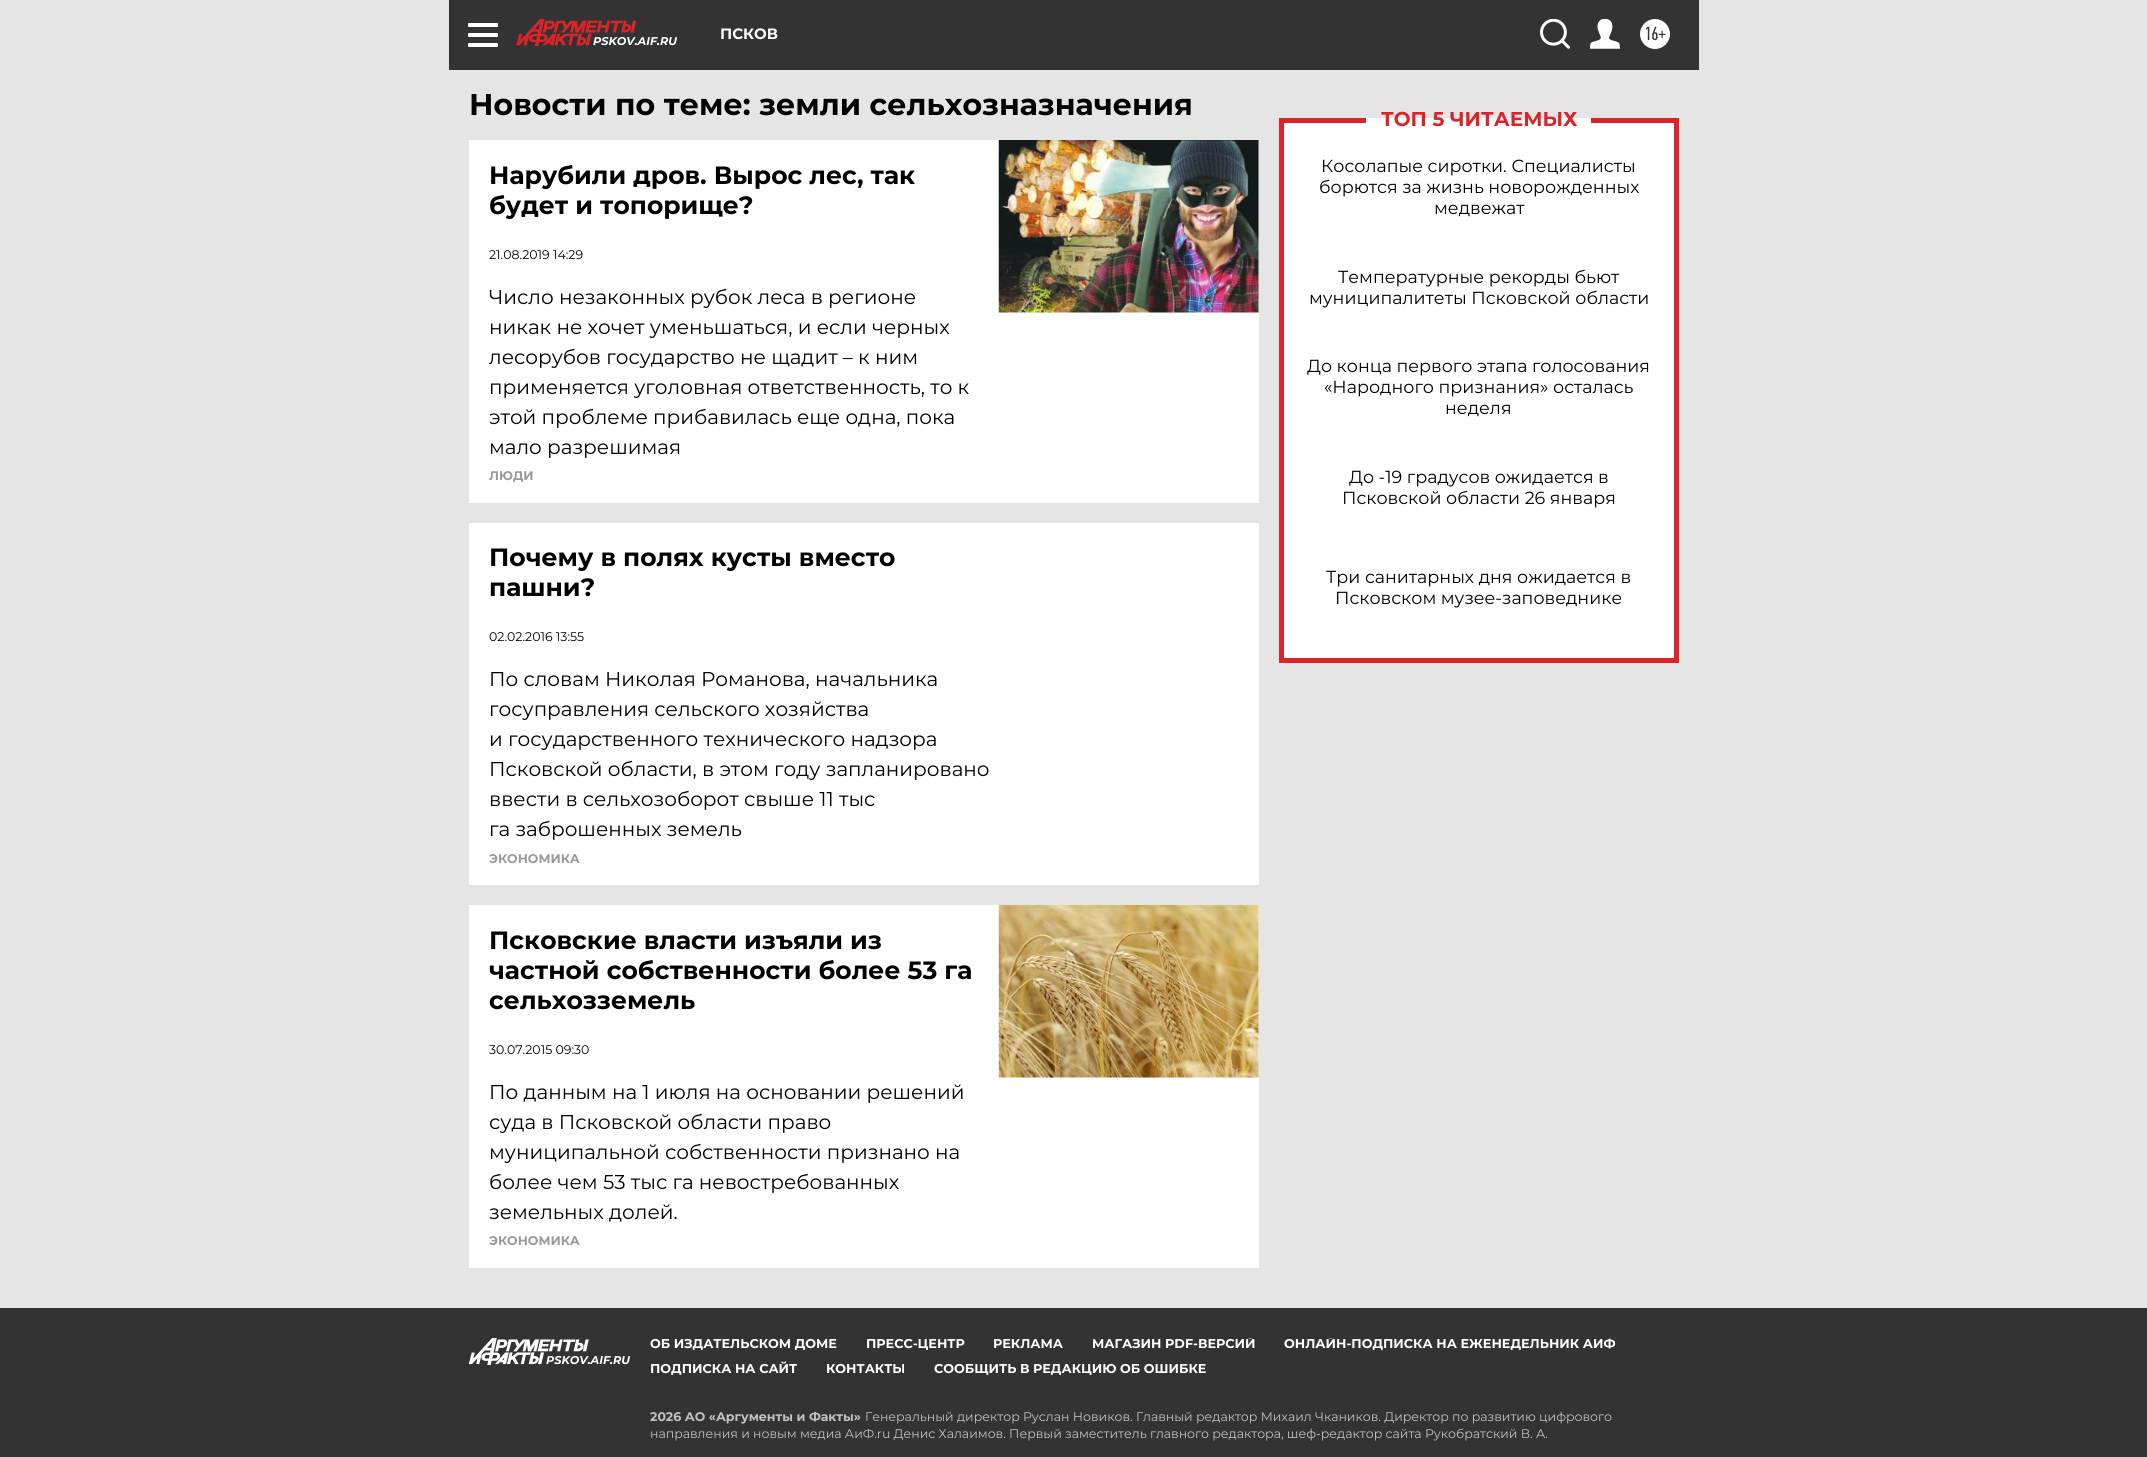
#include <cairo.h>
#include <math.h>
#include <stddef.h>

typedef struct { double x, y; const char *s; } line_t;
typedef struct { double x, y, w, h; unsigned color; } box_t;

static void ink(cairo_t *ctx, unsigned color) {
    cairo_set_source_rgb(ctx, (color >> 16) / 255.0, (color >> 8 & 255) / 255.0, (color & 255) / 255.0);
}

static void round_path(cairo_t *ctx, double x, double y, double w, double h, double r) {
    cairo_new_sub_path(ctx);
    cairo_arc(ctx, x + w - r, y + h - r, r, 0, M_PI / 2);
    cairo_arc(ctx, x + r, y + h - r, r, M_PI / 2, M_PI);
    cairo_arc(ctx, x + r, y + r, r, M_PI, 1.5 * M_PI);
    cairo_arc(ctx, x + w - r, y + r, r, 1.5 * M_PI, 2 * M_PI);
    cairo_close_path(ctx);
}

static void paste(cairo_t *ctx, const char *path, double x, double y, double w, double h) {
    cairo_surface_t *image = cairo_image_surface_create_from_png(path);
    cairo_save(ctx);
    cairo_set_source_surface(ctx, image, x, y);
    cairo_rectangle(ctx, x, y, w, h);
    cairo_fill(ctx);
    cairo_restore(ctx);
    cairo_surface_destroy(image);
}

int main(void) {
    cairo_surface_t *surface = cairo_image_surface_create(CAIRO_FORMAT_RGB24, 2147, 1457);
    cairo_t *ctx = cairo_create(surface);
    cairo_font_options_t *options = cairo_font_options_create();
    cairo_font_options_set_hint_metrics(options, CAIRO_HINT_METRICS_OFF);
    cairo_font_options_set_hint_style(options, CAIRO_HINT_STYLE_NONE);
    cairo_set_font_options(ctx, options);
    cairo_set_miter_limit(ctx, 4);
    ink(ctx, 0xE5E5E5);
    cairo_paint(ctx);
    ink(ctx, 0x333333);
    cairo_rectangle(ctx, 449, 0, 1250, 70);
    cairo_fill(ctx);
    ink(ctx, 0xFFFFFF);
    round_path(ctx, 468, 23, 30, 4, 1);
    cairo_fill(ctx);
    round_path(ctx, 468, 33, 30, 4, 1);
    cairo_fill(ctx);
    round_path(ctx, 468, 43, 30, 4, 1);
    cairo_fill(ctx);
    cairo_select_font_face(ctx, "Montserrat", CAIRO_FONT_SLANT_NORMAL, CAIRO_FONT_WEIGHT_BOLD);
    cairo_set_font_size(ctx, 15);
    cairo_move_to(ctx, 720, 39);
    cairo_show_text(ctx, "ПСКОВ");
    paste(ctx, "media/1.png", 1540, 19, 30, 30);
    paste(ctx, "media/2.png", 1590, 19, 30, 30);
    cairo_arc(ctx, 1655, 34, 15, 0, 2 * M_PI);
    cairo_fill(ctx);
    cairo_select_font_face(ctx, "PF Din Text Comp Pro", CAIRO_FONT_SLANT_NORMAL, CAIRO_FONT_WEIGHT_NORMAL);
    cairo_set_font_size(ctx, 19);
    ink(ctx, 0x333333);
    cairo_move_to(ctx, 1644, 40);
    cairo_show_text(ctx, "16+");
    paste(ctx, "media/3.png", 516, 19, 120, 27);
    cairo_select_font_face(ctx, "Montserrat", CAIRO_FONT_SLANT_ITALIC, CAIRO_FONT_WEIGHT_BOLD);
    cairo_set_font_size(ctx, 11.25);
    ink(ctx, 0xFFFFFF);
    cairo_move_to(ctx, 593, 45);
    cairo_show_text(ctx, "PSKOV.AIF.RU");
    cairo_select_font_face(ctx, "Montserrat", CAIRO_FONT_SLANT_NORMAL, CAIRO_FONT_WEIGHT_BOLD);
    cairo_set_font_size(ctx, 30);
    ink(ctx, 0x000000);
    cairo_move_to(ctx, 469, 115);
    cairo_show_text(ctx, "Новости по теме: земли сельхозназначения");
    ink(ctx, 0xFFFFFF);
    cairo_rectangle(ctx, 469, 140, 790, 363);
    cairo_fill(ctx);
    cairo_set_font_size(ctx, 25);
    ink(ctx, 0x000000);
    cairo_move_to(ctx, 489, 184);
    cairo_show_text(ctx, "Нарубили дров. Вырос лес, так");
    cairo_move_to(ctx, 489, 214);
    cairo_show_text(ctx, "будет и топорище?");
    cairo_select_font_face(ctx, "Montserrat", CAIRO_FONT_SLANT_NORMAL, CAIRO_FONT_WEIGHT_NORMAL);
    cairo_set_font_size(ctx, 12.5);
    cairo_move_to(ctx, 489, 259);
    cairo_show_text(ctx, "21.08.2019 14:29");
    cairo_set_font_size(ctx, 20);
    {
        static const line_t items[] = {
            {489, 304, "Число незаконных рубок леса в регионе"},
            {489, 334, "никак не хочет уменьшаться, и если черных"},
            {489, 364, "лесорубов государство не щадит – к ним"},
            {489, 394, "применяется уголовная ответственность, то к"},
            {489, 424, "этой проблеме прибавилась еще одна, пока"},
            {489, 454, "мало разрешимая"},
        };
        for (size_t i = 0; i < sizeof items / sizeof *items; i++) {
            cairo_move_to(ctx, items[i].x, items[i].y);
            cairo_show_text(ctx, items[i].s);
        }
    }
    paste(ctx, "media/4.png", 998, 140, 261, 173);
    cairo_select_font_face(ctx, "Montserrat", CAIRO_FONT_SLANT_NORMAL, CAIRO_FONT_WEIGHT_BOLD);
    cairo_set_font_size(ctx, 12.5);
    ink(ctx, 0x999999);
    cairo_move_to(ctx, 489, 480);
    cairo_show_text(ctx, "ЛЮДИ");
    ink(ctx, 0xFFFFFF);
    cairo_rectangle(ctx, 469, 523, 790, 362);
    cairo_fill(ctx);
    cairo_set_font_size(ctx, 25);
    ink(ctx, 0x000000);
    cairo_move_to(ctx, 489, 566);
    cairo_show_text(ctx, "Почему в полях кусты вместо");
    cairo_move_to(ctx, 489, 596);
    cairo_show_text(ctx, "пашни?");
    cairo_select_font_face(ctx, "Montserrat", CAIRO_FONT_SLANT_NORMAL, CAIRO_FONT_WEIGHT_NORMAL);
    cairo_set_font_size(ctx, 12.5);
    cairo_move_to(ctx, 489, 641);
    cairo_show_text(ctx, "02.02.2016 13:55");
    cairo_set_font_size(ctx, 20);
    {
        static const line_t items[] = {
            {489, 686, "По словам Николая Романова, начальника"},
            {489, 716, "госуправления сельского хозяйства"},
            {489, 746, "и государственного технического надзора"},
            {489, 776, "Псковской области, в этом году запланировано"},
            {489, 806, "ввести в сельхозоборот свыше 11 тыс"},
            {489, 836, "га заброшенных земель"},
        };
        for (size_t i = 0; i < sizeof items / sizeof *items; i++) {
            cairo_move_to(ctx, items[i].x, items[i].y);
            cairo_show_text(ctx, items[i].s);
        }
    }
    cairo_select_font_face(ctx, "Montserrat", CAIRO_FONT_SLANT_NORMAL, CAIRO_FONT_WEIGHT_BOLD);
    cairo_set_font_size(ctx, 12.5);
    ink(ctx, 0x999999);
    cairo_move_to(ctx, 489, 863);
    cairo_show_text(ctx, "ЭКОНОМИКА");
    ink(ctx, 0xFFFFFF);
    cairo_rectangle(ctx, 469, 905, 790, 363);
    cairo_fill(ctx);
    cairo_set_font_size(ctx, 25);
    ink(ctx, 0x000000);
    {
        static const line_t items[] = {
            {489, 949, "Псковские власти изъяли из"},
            {489, 979, "частной собственности более 53 га"},
            {489, 1009, "сельхозземель"},
        };
        for (size_t i = 0; i < sizeof items / sizeof *items; i++) {
            cairo_move_to(ctx, items[i].x, items[i].y);
            cairo_show_text(ctx, items[i].s);
        }
    }
    cairo_select_font_face(ctx, "Montserrat", CAIRO_FONT_SLANT_NORMAL, CAIRO_FONT_WEIGHT_NORMAL);
    cairo_set_font_size(ctx, 12.5);
    cairo_move_to(ctx, 489, 1054);
    cairo_show_text(ctx, "30.07.2015 09:30");
    cairo_set_font_size(ctx, 20);
    {
        static const line_t items[] = {
            {489, 1099, "По данным на 1 июля на основании решений"},
            {489, 1129, "суда в Псковской области право"},
            {489, 1159, "муниципальной собственности признано на"},
            {489, 1189, "более чем 53 тыс га невостребованных"},
            {489, 1219, "земельных долей."},
        };
        for (size_t i = 0; i < sizeof items / sizeof *items; i++) {
            cairo_move_to(ctx, items[i].x, items[i].y);
            cairo_show_text(ctx, items[i].s);
        }
    }
    paste(ctx, "media/5.png", 998, 905, 261, 173);
    cairo_select_font_face(ctx, "Montserrat", CAIRO_FONT_SLANT_NORMAL, CAIRO_FONT_WEIGHT_BOLD);
    cairo_set_font_size(ctx, 12.5);
    ink(ctx, 0x999999);
    cairo_move_to(ctx, 489, 1245);
    cairo_show_text(ctx, "ЭКОНОМИКА");
    {
        static const box_t items[] = {
            {1284, 118, 390, 540, 0xFFFFFF},
            {1674, 118, 5, 545, 0xDA2429},
            {1279, 658, 400, 5, 0xDA2429},
            {1279, 118, 5, 545, 0xDA2429},
            {1279, 118, 87, 5, 0xDA2429},
        };
        for (size_t i = 0; i < sizeof items / sizeof *items; i++) {
            ink(ctx, items[i].color);
            cairo_rectangle(ctx, items[i].x, items[i].y, items[i].w, items[i].h);
            cairo_fill(ctx);
        }
    }
    cairo_set_font_size(ctx, 20);
    cairo_move_to(ctx, 1381, 126);
    cairo_show_text(ctx, "ТОП 5 ЧИТАЕМЫХ");
    cairo_rectangle(ctx, 1591, 118, 88, 5);
    cairo_fill(ctx);
    cairo_select_font_face(ctx, "Montserrat", CAIRO_FONT_SLANT_NORMAL, CAIRO_FONT_WEIGHT_NORMAL);
    cairo_set_font_size(ctx, 17.5);
    ink(ctx, 0x000000);
    {
        static const line_t items[] = {
            {1321, 172, "Косолапые сиротки. Специалисты"},
            {1319, 193, "борются за жизнь новорожденных"},
            {1434, 214, "медвежат"},
            {1338, 283, "Температурные рекорды бьют"},
            {1309, 304, "муниципалитеты Псковской области"},
            {1307, 372, "До конца первого этапа голосования"},
            {1324, 393, "«Народного признания» осталась"},
            {1445, 414, "неделя"},
            {1349, 483, "До -19 градусов ожидается в"},
            {1342, 504, "Псковской области 26 января"},
            {1326, 583, "Три санитарных дня ожидается в"},
            {1335, 604, "Псковском музее-заповеднике"},
        };
        for (size_t i = 0; i < sizeof items / sizeof *items; i++) {
            cairo_move_to(ctx, items[i].x, items[i].y);
            cairo_show_text(ctx, items[i].s);
        }
    }
    ink(ctx, 0x333333);
    cairo_rectangle(ctx, 0, 1308, 2147, 149);
    cairo_fill(ctx);
    paste(ctx, "media/6.png", 469, 1338, 120, 27);
    cairo_select_font_face(ctx, "Montserrat", CAIRO_FONT_SLANT_ITALIC, CAIRO_FONT_WEIGHT_BOLD);
    cairo_set_font_size(ctx, 11.25);
    ink(ctx, 0xFFFFFF);
    cairo_move_to(ctx, 546, 1364);
    cairo_show_text(ctx, "PSKOV.AIF.RU");
    cairo_select_font_face(ctx, "Montserrat", CAIRO_FONT_SLANT_NORMAL, CAIRO_FONT_WEIGHT_BOLD);
    cairo_set_font_size(ctx, 12.75);
    {
        static const line_t items[] = {
            {650, 1348, "ОБ ИЗДАТЕЛЬСКОМ ДОМЕ"},
            {866, 1348, "ПРЕСС-ЦЕНТР"},
            {993, 1348, "РЕКЛАМА"},
        };
        for (size_t i = 0; i < sizeof items / sizeof *items; i++) {
            cairo_move_to(ctx, items[i].x, items[i].y);
            cairo_show_text(ctx, items[i].s);
        }
    }
    cairo_save(ctx);
    cairo_rectangle(ctx, 650, 1338, 1029, 50);
    cairo_clip(ctx);
    cairo_move_to(ctx, 1092, 1348);
    cairo_show_text(ctx, "МАГАЗИН PDF-ВЕРСИЙ");
    cairo_move_to(ctx, 1284, 1348);
    cairo_show_text(ctx, "ОНЛАЙН-ПОДПИСКА НА ЕЖЕНЕДЕЛЬНИК АИФ");
    cairo_restore(ctx);
    {
        static const line_t items[] = {
            {650, 1373, "ПОДПИСКА НА САЙТ"},
            {826, 1373, "КОНТАКТЫ"},
            {934, 1373, "СООБЩИТЬ В РЕДАКЦИЮ ОБ ОШИБКЕ"},
        };
        for (size_t i = 0; i < sizeof items / sizeof *items; i++) {
            cairo_move_to(ctx, items[i].x, items[i].y);
            cairo_show_text(ctx, items[i].s);
        }
    }
    cairo_set_font_size(ctx, 12.5);
    ink(ctx, 0xC2C2C2);
    cairo_move_to(ctx, 650, 1421);
    cairo_show_text(ctx, "2026 АО «Аргументы и Факты»");
    cairo_select_font_face(ctx, "Montserrat", CAIRO_FONT_SLANT_NORMAL, CAIRO_FONT_WEIGHT_NORMAL);
    cairo_move_to(ctx, 865, 1421);
    cairo_show_text(ctx, "Генеральный директор Руслан Новиков. Главный редактор Михаил Чкаников. Директор по развитию цифрового");
    cairo_move_to(ctx, 650, 1438);
    cairo_show_text(ctx, "направления и новым медиа АиФ.ru Денис Халаимов. Первый заместитель главного редактора, шеф-редактор сайта Рукобратский В. А.");
    cairo_surface_write_to_png(surface, "image.png");
    cairo_font_options_destroy(options);
    cairo_destroy(ctx);
    cairo_surface_destroy(surface);
    return 0;
}
